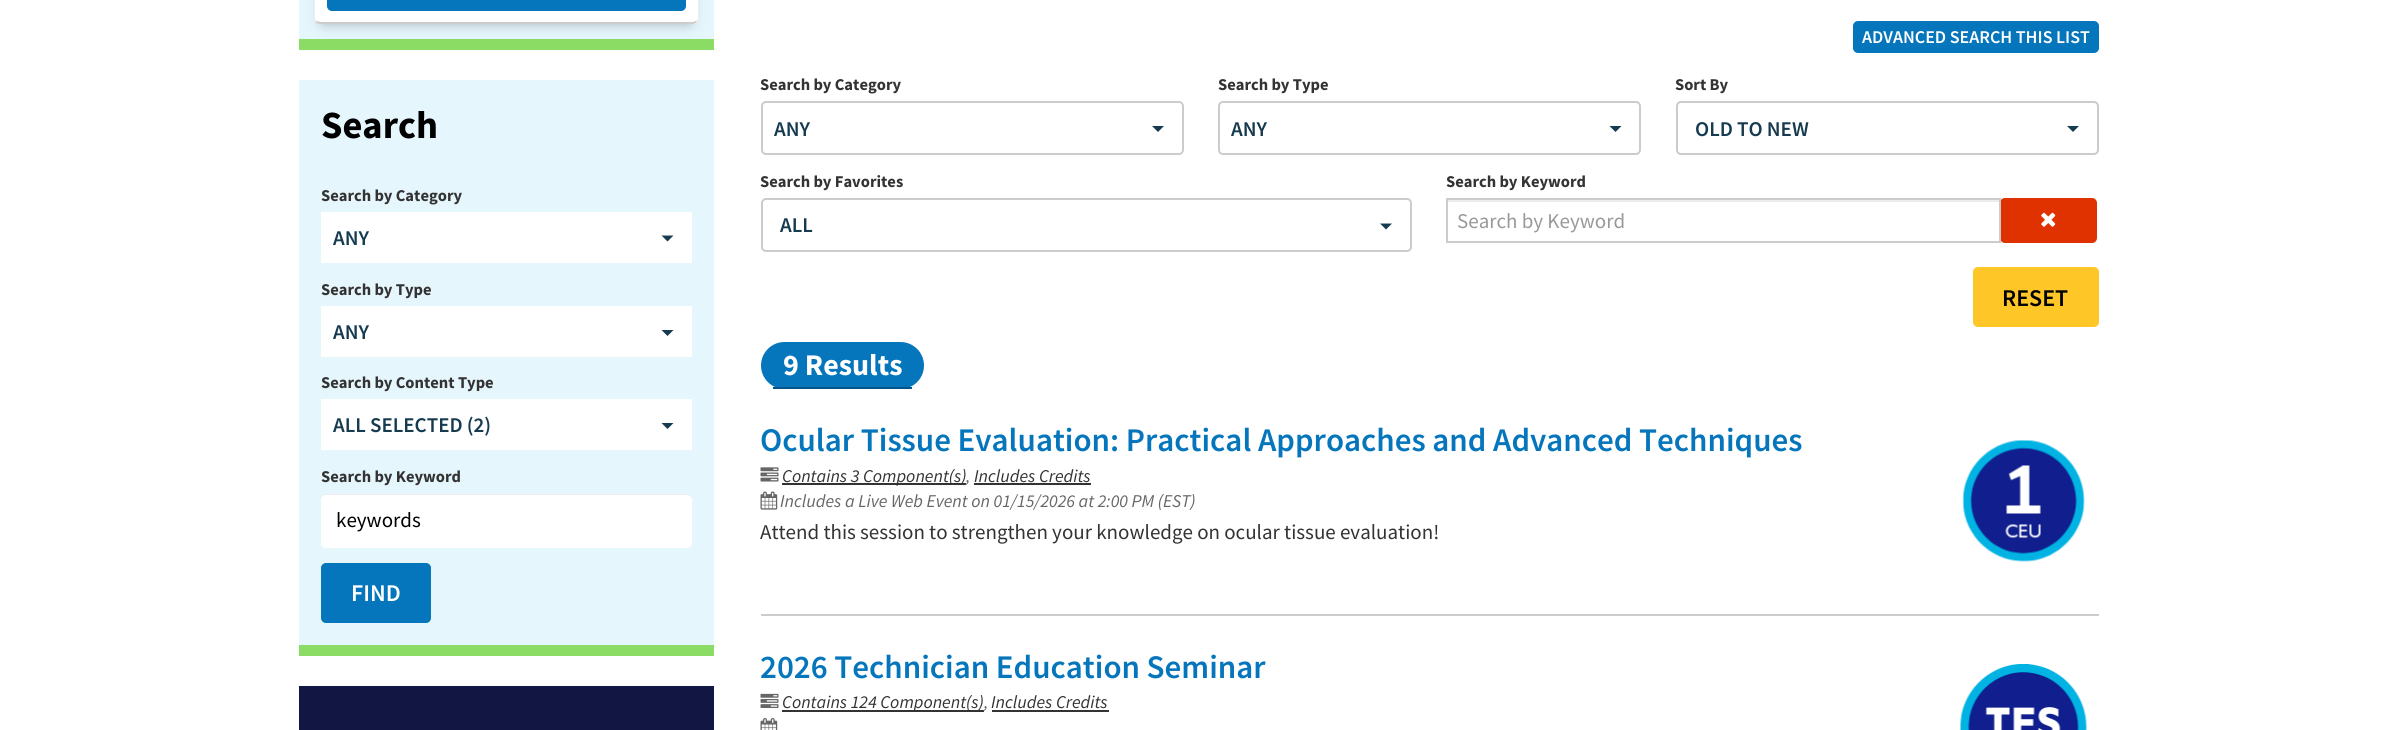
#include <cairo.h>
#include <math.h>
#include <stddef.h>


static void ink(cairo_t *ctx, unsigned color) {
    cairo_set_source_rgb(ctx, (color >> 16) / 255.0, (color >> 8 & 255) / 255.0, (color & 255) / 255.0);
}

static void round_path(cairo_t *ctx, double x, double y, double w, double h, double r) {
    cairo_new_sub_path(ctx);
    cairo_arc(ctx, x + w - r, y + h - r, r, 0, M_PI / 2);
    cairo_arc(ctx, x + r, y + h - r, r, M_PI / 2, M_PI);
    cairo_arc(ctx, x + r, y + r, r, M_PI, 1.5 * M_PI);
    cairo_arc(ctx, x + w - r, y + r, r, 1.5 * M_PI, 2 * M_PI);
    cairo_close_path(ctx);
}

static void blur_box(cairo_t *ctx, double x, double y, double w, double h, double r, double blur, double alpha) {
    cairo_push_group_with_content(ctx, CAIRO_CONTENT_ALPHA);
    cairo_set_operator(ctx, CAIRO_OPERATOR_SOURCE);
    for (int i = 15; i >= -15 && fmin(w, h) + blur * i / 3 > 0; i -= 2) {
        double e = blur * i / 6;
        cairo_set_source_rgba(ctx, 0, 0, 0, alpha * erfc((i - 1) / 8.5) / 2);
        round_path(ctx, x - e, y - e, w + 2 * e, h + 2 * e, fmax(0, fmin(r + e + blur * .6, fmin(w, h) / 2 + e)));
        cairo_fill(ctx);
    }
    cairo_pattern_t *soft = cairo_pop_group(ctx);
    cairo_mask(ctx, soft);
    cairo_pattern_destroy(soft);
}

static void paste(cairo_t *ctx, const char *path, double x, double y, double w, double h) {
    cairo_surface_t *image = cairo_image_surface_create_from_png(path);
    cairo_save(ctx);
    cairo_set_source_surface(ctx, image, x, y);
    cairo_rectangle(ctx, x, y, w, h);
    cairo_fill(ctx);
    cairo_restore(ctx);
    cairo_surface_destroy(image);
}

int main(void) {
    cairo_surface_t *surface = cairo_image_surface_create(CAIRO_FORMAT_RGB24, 2396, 730);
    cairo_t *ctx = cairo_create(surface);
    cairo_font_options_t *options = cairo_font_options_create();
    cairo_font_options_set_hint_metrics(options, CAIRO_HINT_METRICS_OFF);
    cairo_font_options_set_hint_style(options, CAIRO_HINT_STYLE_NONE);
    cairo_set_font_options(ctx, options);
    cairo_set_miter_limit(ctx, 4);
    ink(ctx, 0xFFFFFF);
    cairo_paint(ctx);
    ink(ctx, 0xE6F6FD);
    cairo_rectangle(ctx, 299, 0, 415, 39);
    cairo_fill(ctx);
    ink(ctx, 0x8BDC65);
    cairo_rectangle(ctx, 299, 39, 415, 11);
    cairo_fill(ctx);
    ink(ctx, 0x000000);
    blur_box(ctx, 324, -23, 365, 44, 0, 7.5, 0.4);
    ink(ctx, 0xFFFFFF);
    round_path(ctx, 314, -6, 385, 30, 6);
    cairo_fill(ctx);
    ink(ctx, 0xEEEEEE);
    cairo_new_path(ctx);
    cairo_move_to(ctx, 696, 21);
    cairo_curve_to(ctx, 697, 20, 698, 19, 698, 18);
    cairo_line_to(ctx, 698, -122);
    cairo_curve_to(ctx, 698, -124, 696, -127, 695, -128);
    cairo_curve_to(ctx, 697, -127, 699, -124, 699, -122);
    cairo_line_to(ctx, 699, 18);
    cairo_curve_to(ctx, 699, 20, 698, 21, 697, 22);
    cairo_close_path(ctx);
    cairo_fill(ctx);
    ink(ctx, 0xCCCCCC);
    cairo_new_path(ctx);
    cairo_move_to(ctx, 317, 21);
    cairo_line_to(ctx, 320, 22);
    cairo_line_to(ctx, 693, 22);
    cairo_line_to(ctx, 696, 21);
    cairo_line_to(ctx, 697, 22);
    cairo_curve_to(ctx, 696, 23, 694, 24, 693, 24);
    cairo_line_to(ctx, 320, 24);
    cairo_curve_to(ctx, 318, 24, 316, 23, 315, 22);
    cairo_close_path(ctx);
    cairo_fill(ctx);
    ink(ctx, 0xEEEEEE);
    cairo_new_path(ctx);
    cairo_move_to(ctx, 318, -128);
    cairo_curve_to(ctx, 316, -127, 315, -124, 315, -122);
    cairo_line_to(ctx, 315, 18);
    cairo_curve_to(ctx, 315, 19, 316, 20, 317, 21);
    cairo_line_to(ctx, 315, 22);
    cairo_line_to(ctx, 314, 19);
    cairo_line_to(ctx, 314, -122);
    cairo_curve_to(ctx, 314, -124, 315, -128, 318, -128);
    cairo_close_path(ctx);
    cairo_fill(ctx);
    ink(ctx, 0x0575BC);
    round_path(ctx, 327, -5, 359, 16, 5);
    cairo_fill(ctx);
    ink(ctx, 0xE6F6FD);
    cairo_rectangle(ctx, 299, 80, 415, 565);
    cairo_fill(ctx);
    ink(ctx, 0x8BDC65);
    cairo_rectangle(ctx, 299, 645, 415, 11);
    cairo_fill(ctx);
    cairo_select_font_face(ctx, "Source Sans Pro", CAIRO_FONT_SLANT_NORMAL, CAIRO_FONT_WEIGHT_BOLD);
    cairo_set_font_size(ctx, 38.5);
    ink(ctx, 0x000000);
    cairo_move_to(ctx, 321, 138);
    cairo_show_text(ctx, "Search");
    cairo_set_font_size(ctx, 16.5);
    ink(ctx, 0x333333);
    cairo_move_to(ctx, 321, 201);
    cairo_show_text(ctx, "Search by Category");
    ink(ctx, 0xFFFFFF);
    cairo_rectangle(ctx, 321, 212, 371, 51);
    cairo_fill(ctx);
    cairo_select_font_face(ctx, "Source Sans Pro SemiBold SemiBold", CAIRO_FONT_SLANT_NORMAL, CAIRO_FONT_WEIGHT_NORMAL);
    cairo_set_font_size(ctx, 21);
    ink(ctx, 0x163A50);
    cairo_move_to(ctx, 333, 245);
    cairo_show_text(ctx, "ANY");
    cairo_new_path(ctx);
    cairo_move_to(ctx, 661.5, 235.5);
    cairo_line_to(ctx, 673.5, 235.5);
    cairo_line_to(ctx, 667.5, 241.5);
    cairo_close_path(ctx);
    cairo_fill(ctx);
    cairo_select_font_face(ctx, "Source Sans Pro", CAIRO_FONT_SLANT_NORMAL, CAIRO_FONT_WEIGHT_BOLD);
    cairo_set_font_size(ctx, 16.5);
    ink(ctx, 0x333333);
    cairo_move_to(ctx, 321, 295);
    cairo_show_text(ctx, "Search by Type");
    ink(ctx, 0xFFFFFF);
    cairo_rectangle(ctx, 321, 306, 371, 51);
    cairo_fill(ctx);
    cairo_select_font_face(ctx, "Source Sans Pro SemiBold SemiBold", CAIRO_FONT_SLANT_NORMAL, CAIRO_FONT_WEIGHT_NORMAL);
    cairo_set_font_size(ctx, 21);
    ink(ctx, 0x163A50);
    cairo_move_to(ctx, 333, 339);
    cairo_show_text(ctx, "ANY");
    cairo_new_path(ctx);
    cairo_move_to(ctx, 661.5, 330);
    cairo_line_to(ctx, 673.5, 330);
    cairo_line_to(ctx, 667.5, 336);
    cairo_close_path(ctx);
    cairo_fill(ctx);
    cairo_select_font_face(ctx, "Source Sans Pro", CAIRO_FONT_SLANT_NORMAL, CAIRO_FONT_WEIGHT_BOLD);
    cairo_set_font_size(ctx, 16.5);
    ink(ctx, 0x333333);
    cairo_move_to(ctx, 321, 388);
    cairo_show_text(ctx, "Search by Content Type");
    ink(ctx, 0xFFFFFF);
    cairo_rectangle(ctx, 321, 399, 371, 51);
    cairo_fill(ctx);
    cairo_select_font_face(ctx, "Source Sans Pro SemiBold SemiBold", CAIRO_FONT_SLANT_NORMAL, CAIRO_FONT_WEIGHT_NORMAL);
    cairo_set_font_size(ctx, 21);
    ink(ctx, 0x163A50);
    cairo_move_to(ctx, 333, 432);
    cairo_show_text(ctx, "ALL SELECTED (2)");
    cairo_new_path(ctx);
    cairo_move_to(ctx, 661.5, 423);
    cairo_line_to(ctx, 673.5, 423);
    cairo_line_to(ctx, 667.5, 429);
    cairo_close_path(ctx);
    cairo_fill(ctx);
    cairo_select_font_face(ctx, "Source Sans Pro", CAIRO_FONT_SLANT_NORMAL, CAIRO_FONT_WEIGHT_BOLD);
    cairo_set_font_size(ctx, 16.5);
    ink(ctx, 0x333333);
    cairo_move_to(ctx, 321, 482);
    cairo_show_text(ctx, "Search by Keyword");
    ink(ctx, 0xFFFFFF);
    round_path(ctx, 321, 494, 371, 54, 5);
    cairo_fill(ctx);
    cairo_set_source_rgba(ctx, 0, 0, 0, 0.07);
    cairo_new_path(ctx);
    cairo_move_to(ctx, 326, 495);
    cairo_line_to(ctx, 687, 495);
    cairo_curve_to(ctx, 689, 495, 692, 497, 692, 500);
    cairo_line_to(ctx, 692, 499);
    cairo_curve_to(ctx, 692, 496, 690, 494, 687, 494);
    cairo_line_to(ctx, 326, 494);
    cairo_curve_to(ctx, 323, 494, 321, 496, 321, 499);
    cairo_line_to(ctx, 321, 500);
    cairo_curve_to(ctx, 321, 497, 323, 495, 326, 495);
    cairo_close_path(ctx);
    cairo_fill(ctx);
    cairo_select_font_face(ctx, "Source Sans Pro", CAIRO_FONT_SLANT_NORMAL, CAIRO_FONT_WEIGHT_NORMAL);
    cairo_set_font_size(ctx, 21);
    ink(ctx, 0x000000);
    cairo_move_to(ctx, 336, 527);
    cairo_show_text(ctx, "keywords");
    ink(ctx, 0x0575BC);
    round_path(ctx, 321, 563, 110, 60, 5);
    cairo_fill(ctx);
    cairo_select_font_face(ctx, "Source Sans Pro SemiBold SemiBold", CAIRO_FONT_SLANT_NORMAL, CAIRO_FONT_WEIGHT_NORMAL);
    cairo_set_font_size(ctx, 24);
    ink(ctx, 0xFFFFFF);
    cairo_move_to(ctx, 351, 601);
    cairo_show_text(ctx, "FIND");
    ink(ctx, 0x111642);
    cairo_rectangle(ctx, 299, 686, 415, 44);
    cairo_fill(ctx);
    ink(ctx, 0x0575BC);
    round_path(ctx, 1853, 21, 246, 32, 5);
    cairo_fill(ctx);
    cairo_set_font_size(ctx, 18);
    ink(ctx, 0xFFFFFF);
    cairo_move_to(ctx, 1862, 43);
    cairo_show_text(ctx, "ADVANCED SEARCH THIS LIST");
    cairo_select_font_face(ctx, "Source Sans Pro", CAIRO_FONT_SLANT_NORMAL, CAIRO_FONT_WEIGHT_BOLD);
    cairo_set_font_size(ctx, 16.5);
    ink(ctx, 0x333333);
    cairo_move_to(ctx, 760, 90);
    cairo_show_text(ctx, "Search by Category");
    round_path(ctx, 762, 102, 421, 52, 4);
    ink(ctx, 0xCCCCCC);
    cairo_stroke(ctx);
    cairo_select_font_face(ctx, "Source Sans Pro SemiBold SemiBold", CAIRO_FONT_SLANT_NORMAL, CAIRO_FONT_WEIGHT_NORMAL);
    cairo_set_font_size(ctx, 21);
    ink(ctx, 0x163A50);
    cairo_move_to(ctx, 774, 136);
    cairo_show_text(ctx, "ANY");
    cairo_new_path(ctx);
    cairo_move_to(ctx, 1152, 126);
    cairo_line_to(ctx, 1164, 126);
    cairo_line_to(ctx, 1158, 132);
    cairo_close_path(ctx);
    cairo_fill(ctx);
    cairo_select_font_face(ctx, "Source Sans Pro", CAIRO_FONT_SLANT_NORMAL, CAIRO_FONT_WEIGHT_BOLD);
    cairo_set_font_size(ctx, 16.5);
    ink(ctx, 0x333333);
    cairo_move_to(ctx, 1218, 90);
    cairo_show_text(ctx, "Search by Type");
    round_path(ctx, 1219, 102, 421, 52, 4);
    ink(ctx, 0xCCCCCC);
    cairo_stroke(ctx);
    cairo_select_font_face(ctx, "Source Sans Pro SemiBold SemiBold", CAIRO_FONT_SLANT_NORMAL, CAIRO_FONT_WEIGHT_NORMAL);
    cairo_set_font_size(ctx, 21);
    ink(ctx, 0x163A50);
    cairo_move_to(ctx, 1231, 136);
    cairo_show_text(ctx, "ANY");
    cairo_new_path(ctx);
    cairo_move_to(ctx, 1609.5, 126);
    cairo_line_to(ctx, 1621.5, 126);
    cairo_line_to(ctx, 1615.5, 132);
    cairo_close_path(ctx);
    cairo_fill(ctx);
    cairo_select_font_face(ctx, "Source Sans Pro", CAIRO_FONT_SLANT_NORMAL, CAIRO_FONT_WEIGHT_BOLD);
    cairo_set_font_size(ctx, 16.5);
    ink(ctx, 0x333333);
    cairo_move_to(ctx, 1675, 90);
    cairo_show_text(ctx, "Sort By");
    round_path(ctx, 1677, 102, 421, 52, 4);
    ink(ctx, 0xCCCCCC);
    cairo_stroke(ctx);
    cairo_select_font_face(ctx, "Source Sans Pro SemiBold SemiBold", CAIRO_FONT_SLANT_NORMAL, CAIRO_FONT_WEIGHT_NORMAL);
    cairo_set_font_size(ctx, 21);
    ink(ctx, 0x163A50);
    cairo_move_to(ctx, 1695, 136);
    cairo_show_text(ctx, "OLD TO NEW");
    cairo_new_path(ctx);
    cairo_move_to(ctx, 2067, 126);
    cairo_line_to(ctx, 2079, 126);
    cairo_line_to(ctx, 2073, 132);
    cairo_close_path(ctx);
    cairo_fill(ctx);
    cairo_select_font_face(ctx, "Source Sans Pro", CAIRO_FONT_SLANT_NORMAL, CAIRO_FONT_WEIGHT_BOLD);
    cairo_set_font_size(ctx, 16.5);
    ink(ctx, 0x333333);
    cairo_move_to(ctx, 760, 187);
    cairo_show_text(ctx, "Search by Favorites");
    round_path(ctx, 762, 199, 649, 52, 4);
    ink(ctx, 0xCCCCCC);
    cairo_stroke(ctx);
    cairo_select_font_face(ctx, "Source Sans Pro SemiBold SemiBold", CAIRO_FONT_SLANT_NORMAL, CAIRO_FONT_WEIGHT_NORMAL);
    cairo_set_font_size(ctx, 21);
    ink(ctx, 0x163A50);
    cairo_move_to(ctx, 780, 232);
    cairo_show_text(ctx, "ALL");
    cairo_new_path(ctx);
    cairo_move_to(ctx, 1380, 223.5);
    cairo_line_to(ctx, 1392, 223.5);
    cairo_line_to(ctx, 1386, 229.5);
    cairo_close_path(ctx);
    cairo_fill(ctx);
    cairo_select_font_face(ctx, "Source Sans Pro", CAIRO_FONT_SLANT_NORMAL, CAIRO_FONT_WEIGHT_BOLD);
    cairo_set_font_size(ctx, 16.5);
    ink(ctx, 0x333333);
    cairo_move_to(ctx, 1446, 187);
    cairo_show_text(ctx, "Search by Keyword");
    ink(ctx, 0xECECEC);
    cairo_rectangle(ctx, 1448, 200, 552, 2);
    cairo_fill(ctx);
    ink(ctx, 0xE03100);
    round_path(ctx, 2000, 198, 97, 45, 5);
    cairo_fill(ctx);
    cairo_rectangle(ctx, 1447, 199, 553, 43);
    ink(ctx, 0xCCCCCC);
    cairo_stroke(ctx);
    cairo_select_font_face(ctx, "Source Sans Pro", CAIRO_FONT_SLANT_NORMAL, CAIRO_FONT_WEIGHT_NORMAL);
    cairo_set_font_size(ctx, 21);
    ink(ctx, 0x999999);
    cairo_move_to(ctx, 1457, 228);
    cairo_show_text(ctx, "Search by Keyword");
    paste(ctx, "media/1.png", 2041, 212, 15, 15);
    ink(ctx, 0xFFC627);
    round_path(ctx, 1973, 267, 126, 60, 5);
    cairo_fill(ctx);
    cairo_select_font_face(ctx, "Source Sans Pro SemiBold SemiBold", CAIRO_FONT_SLANT_NORMAL, CAIRO_FONT_WEIGHT_NORMAL);
    cairo_set_font_size(ctx, 24);
    ink(ctx, 0x000000);
    cairo_move_to(ctx, 2002, 306);
    cairo_show_text(ctx, "RESET");
    ink(ctx, 0x0575BC);
    round_path(ctx, 761, 342, 163, 47, 23.5);
    cairo_fill(ctx);
    ink(ctx, 0x04568A);
    cairo_rectangle(ctx, 773, 387, 139, 2);
    cairo_fill(ctx);
    cairo_select_font_face(ctx, "Source Sans Pro", CAIRO_FONT_SLANT_NORMAL, CAIRO_FONT_WEIGHT_BOLD);
    cairo_set_font_size(ctx, 30);
    ink(ctx, 0xFFFFFF);
    cairo_move_to(ctx, 783, 375);
    cairo_show_text(ctx, "9 Results");
    ink(ctx, 0xCBCCCC);
    cairo_rectangle(ctx, 761, 614, 1338, 2);
    cairo_fill(ctx);
    cairo_select_font_face(ctx, "Source Sans Pro SemiBold SemiBold", CAIRO_FONT_SLANT_NORMAL, CAIRO_FONT_WEIGHT_NORMAL);
    cairo_set_font_size(ctx, 33);
    ink(ctx, 0x0575BC);
    cairo_move_to(ctx, 760, 451);
    cairo_show_text(ctx, "Ocular Tissue Evaluation: Practical Approaches and Advanced Techniques");
    paste(ctx, "media/2.png", 1962, 439, 123, 123);
    paste(ctx, "media/3.png", 760, 467, 19, 15);
    ink(ctx, 0x333333);
    cairo_rectangle(ctx, 782, 483, 184, 2);
    cairo_fill(ctx);
    cairo_select_font_face(ctx, "Source Sans Pro", CAIRO_FONT_SLANT_ITALIC, CAIRO_FONT_WEIGHT_NORMAL);
    cairo_set_font_size(ctx, 18);
    cairo_move_to(ctx, 782, 482);
    cairo_show_text(ctx, "Contains 3 Component(s)");
    ink(ctx, 0x666666);
    cairo_move_to(ctx, 966, 482);
    cairo_show_text(ctx, ",");
    ink(ctx, 0x333333);
    cairo_move_to(ctx, 974, 482);
    cairo_show_text(ctx, "Includes Credits");
    cairo_rectangle(ctx, 974, 483, 117, 2);
    cairo_fill(ctx);
    paste(ctx, "media/4.png", 760, 491, 18, 19);
    ink(ctx, 0x666666);
    cairo_move_to(ctx, 780, 507);
    cairo_show_text(ctx, "Includes a Live Web Event on 01/15/2026 at 2:00 PM (EST)");
    cairo_select_font_face(ctx, "Source Sans Pro", CAIRO_FONT_SLANT_NORMAL, CAIRO_FONT_WEIGHT_NORMAL);
    cairo_set_font_size(ctx, 21);
    ink(ctx, 0x333333);
    cairo_move_to(ctx, 760, 539);
    cairo_show_text(ctx, "Attend this session to strengthen your knowledge on ocular tissue evaluation!");
    cairo_select_font_face(ctx, "Source Sans Pro SemiBold SemiBold", CAIRO_FONT_SLANT_NORMAL, CAIRO_FONT_WEIGHT_NORMAL);
    cairo_set_font_size(ctx, 33);
    ink(ctx, 0x0575BC);
    cairo_move_to(ctx, 760, 678);
    cairo_show_text(ctx, "2026 Technician Education Seminar");
    paste(ctx, "media/5.png", 1960, 663, 127, 67);
    paste(ctx, "media/6.png", 760, 693, 19, 15);
    ink(ctx, 0x333333);
    cairo_rectangle(ctx, 782, 710, 202, 2);
    cairo_fill(ctx);
    cairo_select_font_face(ctx, "Source Sans Pro", CAIRO_FONT_SLANT_ITALIC, CAIRO_FONT_WEIGHT_NORMAL);
    cairo_set_font_size(ctx, 18);
    cairo_move_to(ctx, 782, 708);
    cairo_show_text(ctx, "Contains 124 Component(s)");
    ink(ctx, 0x666666);
    cairo_move_to(ctx, 984, 708);
    cairo_show_text(ctx, ",");
    ink(ctx, 0x333333);
    cairo_move_to(ctx, 991, 708);
    cairo_show_text(ctx, "Includes Credits");
    cairo_rectangle(ctx, 992, 710, 117, 2);
    cairo_fill(ctx);
    paste(ctx, "media/7.png", 760, 718, 18, 12);
    cairo_surface_write_to_png(surface, "image.png");
    cairo_font_options_destroy(options);
    cairo_destroy(ctx);
    cairo_surface_destroy(surface);
    return 0;
}
